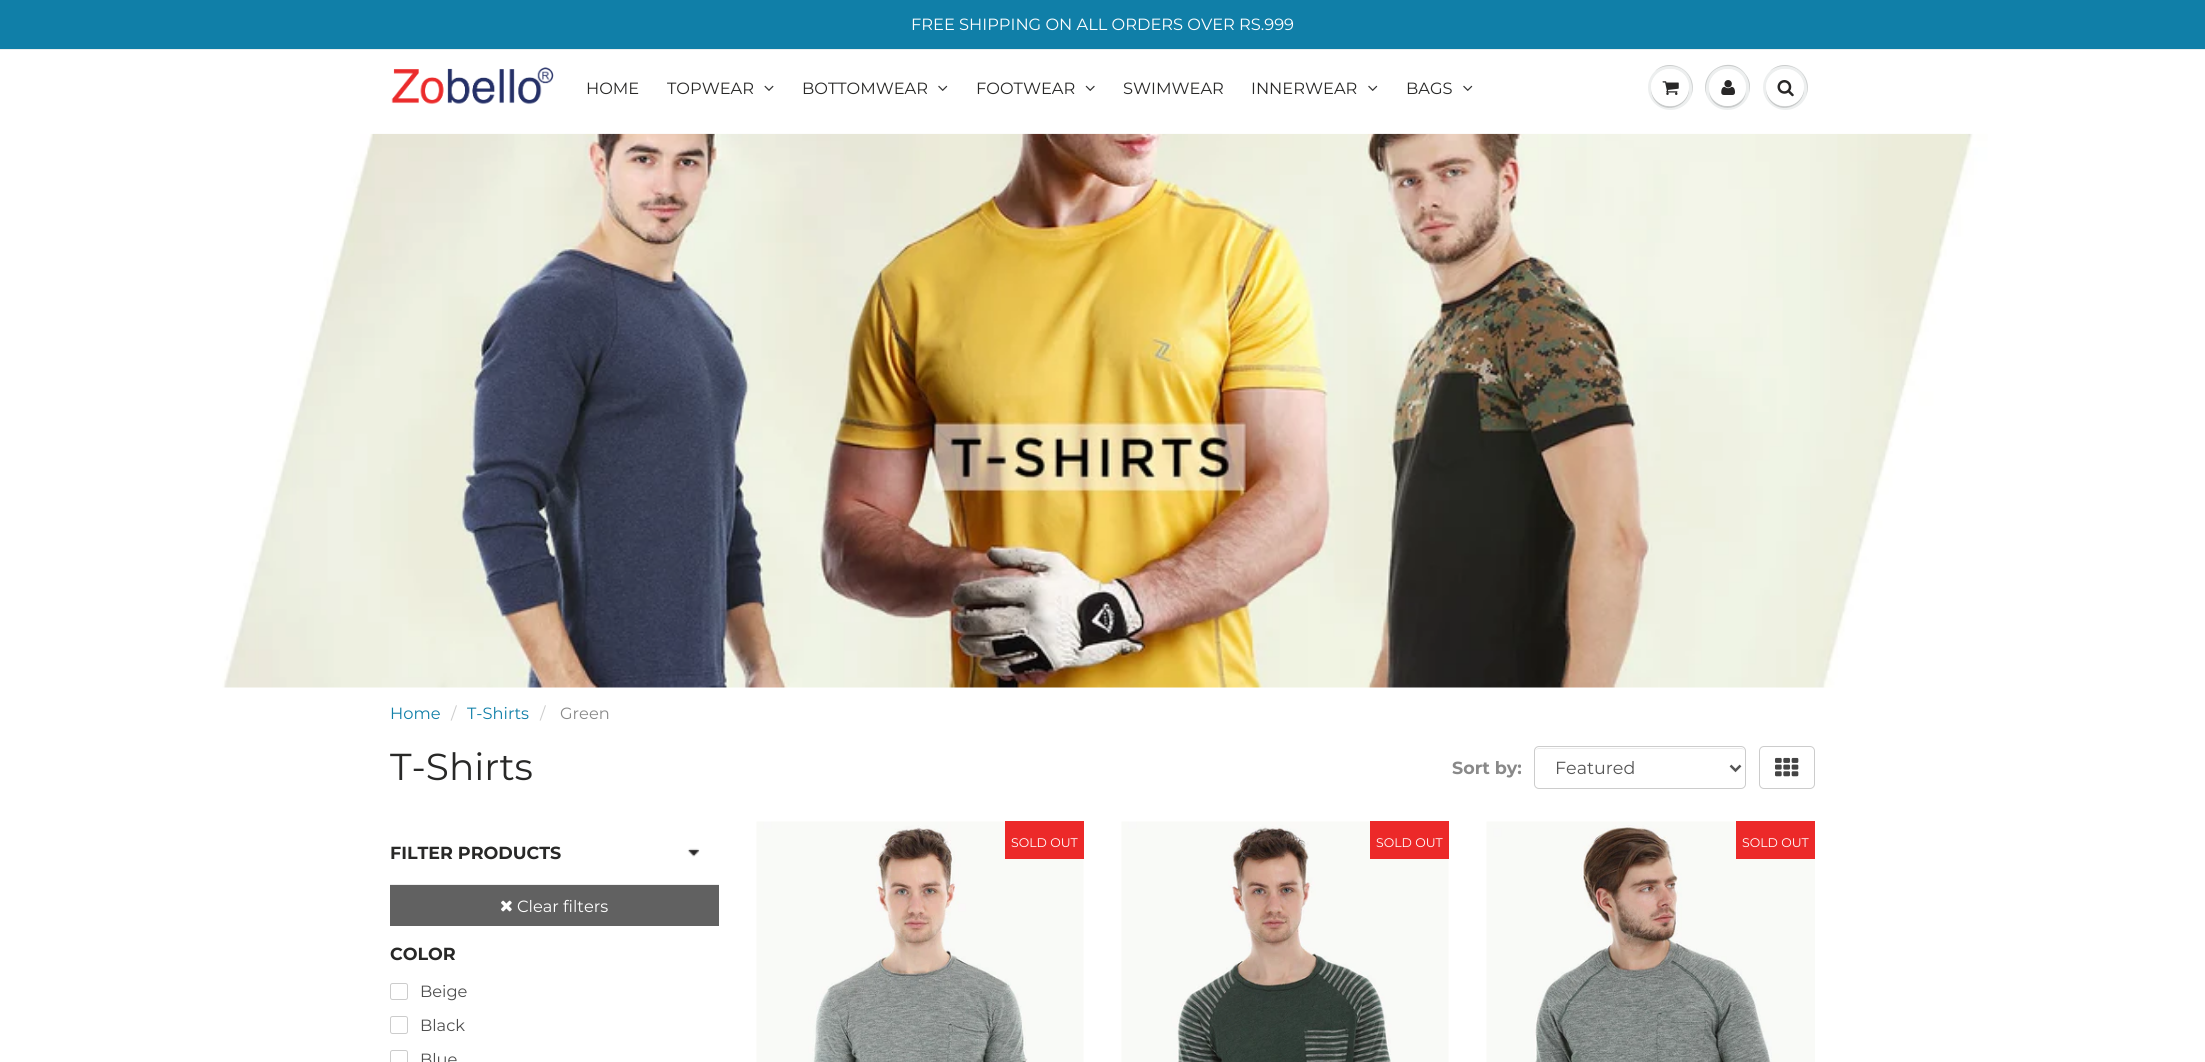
#include <cairo.h>
#include <math.h>
#include <stddef.h>


static void ink(cairo_t *ctx, unsigned color) {
    cairo_set_source_rgb(ctx, (color >> 16) / 255.0, (color >> 8 & 255) / 255.0, (color & 255) / 255.0);
}

static void round_path(cairo_t *ctx, double x, double y, double w, double h, double r) {
    cairo_new_sub_path(ctx);
    cairo_arc(ctx, x + w - r, y + h - r, r, 0, M_PI / 2);
    cairo_arc(ctx, x + r, y + h - r, r, M_PI / 2, M_PI);
    cairo_arc(ctx, x + r, y + r, r, M_PI, 1.5 * M_PI);
    cairo_arc(ctx, x + w - r, y + r, r, 1.5 * M_PI, 2 * M_PI);
    cairo_close_path(ctx);
}

static void paste(cairo_t *ctx, const char *path, double x, double y, double w, double h) {
    cairo_surface_t *image = cairo_image_surface_create_from_png(path);
    cairo_save(ctx);
    cairo_set_source_surface(ctx, image, x, y);
    cairo_rectangle(ctx, x, y, w, h);
    cairo_fill(ctx);
    cairo_restore(ctx);
    cairo_surface_destroy(image);
}

int main(void) {
    cairo_surface_t *surface = cairo_image_surface_create(CAIRO_FORMAT_RGB24, 2205, 1062);
    cairo_t *ctx = cairo_create(surface);
    cairo_font_options_t *options = cairo_font_options_create();
    cairo_font_options_set_hint_metrics(options, CAIRO_HINT_METRICS_OFF);
    cairo_font_options_set_hint_style(options, CAIRO_HINT_STYLE_NONE);
    cairo_set_font_options(ctx, options);
    cairo_set_miter_limit(ctx, 4);
    ink(ctx, 0xFFFFFF);
    cairo_paint(ctx);
    ink(ctx, 0x107FA8);
    cairo_rectangle(ctx, 0, 0, 2205, 49);
    cairo_fill(ctx);
    cairo_select_font_face(ctx, "Montserrat", CAIRO_FONT_SLANT_NORMAL, CAIRO_FONT_WEIGHT_NORMAL);
    cairo_set_font_size(ctx, 16.25);
    ink(ctx, 0xFFFFFF);
    cairo_move_to(ctx, 911, 30);
    cairo_show_text(ctx, "FREE SHIPPING ON ALL ORDERS OVER RS.999");
    ink(ctx, 0xECEFEF);
    cairo_rectangle(ctx, 0, 49, 2205, 1);
    cairo_fill(ctx);
    paste(ctx, "media/1.png", 391, 67, 163, 38);
    ink(ctx, 0x282827);
    cairo_move_to(ctx, 586, 94);
    cairo_show_text(ctx, "HOME");
    cairo_move_to(ctx, 667, 94);
    cairo_show_text(ctx, "TOPWEAR");
    paste(ctx, "media/2.png", 764, 85, 10, 6);
    cairo_move_to(ctx, 802, 94);
    cairo_show_text(ctx, "BOTTOMWEAR");
    paste(ctx, "media/3.png", 938, 85, 10, 6);
    cairo_move_to(ctx, 976, 94);
    cairo_show_text(ctx, "FOOTWEAR");
    paste(ctx, "media/4.png", 1085, 85, 10, 6);
    cairo_move_to(ctx, 1123, 94);
    cairo_show_text(ctx, "SWIMWEAR");
    cairo_move_to(ctx, 1251, 94);
    cairo_show_text(ctx, "INNERWEAR");
    paste(ctx, "media/3.png", 1368, 85, 10, 6);
    cairo_move_to(ctx, 1406, 94);
    cairo_show_text(ctx, "BAGS");
    paste(ctx, "media/3.png", 1463, 85, 10, 6);
    ink(ctx, 0xEDEFEF);
    cairo_arc(ctx, 1670.5, 87.5, 22.5, 0, 2 * M_PI);
    cairo_fill(ctx);
    ink(ctx, 0xC9CBCB);
    cairo_new_path(ctx);
    cairo_move_to(ctx, 1670, 66);
    cairo_curve_to(ctx, 1688, 66, 1695, 83, 1691, 96);
    cairo_curve_to(ctx, 1700, 74, 1672, 55, 1655, 71);
    cairo_curve_to(ctx, 1659, 68, 1664, 66, 1670, 66);
    cairo_close_path(ctx);
    cairo_fill(ctx);
    cairo_new_path(ctx);
    cairo_move_to(ctx, 1651.5, 85);
    cairo_curve_to(ctx, 1650.5, 90, 1651.5, 95.5, 1654, 99.5);
    cairo_curve_to(ctx, 1666, 117, 1693, 105, 1688.5, 85);
    cairo_curve_to(ctx, 1689, 89.5, 1688, 94, 1685.5, 98);
    cairo_curve_to(ctx, 1674.5, 114.5, 1649, 104.5, 1651.5, 85);
    cairo_close_path(ctx);
    cairo_fill(ctx);
    ink(ctx, 0xFFFFFF);
    round_path(ctx, 1651, 69, 38, 37, 18.5);
    cairo_fill(ctx);
    cairo_new_path(ctx);
    cairo_move_to(ctx, 1670, 70);
    cairo_curve_to(ctx, 1683.5, 70, 1689.5, 81, 1688.5, 91);
    cairo_curve_to(ctx, 1689.5, 86.5, 1688.5, 81, 1686, 77);
    cairo_curve_to(ctx, 1674.5, 60.5, 1647.5, 71, 1651.5, 91);
    cairo_curve_to(ctx, 1650.5, 81, 1656.5, 70, 1670, 70);
    cairo_close_path(ctx);
    cairo_fill(ctx);
    paste(ctx, "media/5.png", 1662, 81, 17, 14);
    ink(ctx, 0xEDEFEF);
    cairo_arc(ctx, 1727.5, 87.5, 22.5, 0, 2 * M_PI);
    cairo_fill(ctx);
    ink(ctx, 0xC9CBCB);
    cairo_new_path(ctx);
    cairo_move_to(ctx, 1728, 66);
    cairo_curve_to(ctx, 1744, 66, 1751, 80, 1749, 93);
    cairo_curve_to(ctx, 1751, 87, 1750, 80, 1746, 75);
    cairo_curve_to(ctx, 1731, 52, 1697, 72, 1707, 96);
    cairo_curve_to(ctx, 1703, 83, 1710, 66, 1728, 66);
    cairo_close_path(ctx);
    cairo_fill(ctx);
    cairo_new_path(ctx);
    cairo_move_to(ctx, 1746, 91);
    cairo_curve_to(ctx, 1742.5, 111, 1712.5, 111, 1709, 91);
    cairo_curve_to(ctx, 1710.5, 113.5, 1744.5, 113.5, 1746, 91);
    cairo_close_path(ctx);
    cairo_fill(ctx);
    ink(ctx, 0xFFFFFF);
    cairo_arc(ctx, 1727.5, 87.5, 18.5, 0, 2 * M_PI);
    cairo_fill(ctx);
    cairo_new_path(ctx);
    cairo_move_to(ctx, 1728, 70);
    cairo_curve_to(ctx, 1739.5, 70, 1745.5, 79, 1746, 88);
    cairo_curve_to(ctx, 1746, 84.5, 1745, 80.5, 1743, 77);
    cairo_curve_to(ctx, 1731.5, 60.5, 1705.5, 71.5, 1709.5, 91);
    cairo_curve_to(ctx, 1708.5, 81, 1714.5, 70, 1728, 70);
    cairo_close_path(ctx);
    cairo_fill(ctx);
    paste(ctx, "media/6.png", 1721, 80, 14, 15);
    ink(ctx, 0xEDEFEF);
    cairo_arc(ctx, 1785.5, 87.5, 22.5, 0, 2 * M_PI);
    cairo_fill(ctx);
    ink(ctx, 0xC9CBCB);
    cairo_new_path(ctx);
    cairo_move_to(ctx, 1785, 66);
    cairo_curve_to(ctx, 1803, 66, 1810, 83, 1806, 96);
    cairo_curve_to(ctx, 1815, 74, 1787, 55, 1770, 71);
    cairo_curve_to(ctx, 1774, 68, 1779, 66, 1785, 66);
    cairo_close_path(ctx);
    cairo_fill(ctx);
    cairo_new_path(ctx);
    cairo_move_to(ctx, 1766.5, 85);
    cairo_curve_to(ctx, 1765.5, 90, 1766.5, 95.5, 1769, 99.5);
    cairo_curve_to(ctx, 1781, 117, 1808, 105, 1803.5, 85);
    cairo_curve_to(ctx, 1806, 104.5, 1780.5, 114.5, 1769.5, 98);
    cairo_curve_to(ctx, 1767, 94, 1766, 89.5, 1766.5, 85);
    cairo_close_path(ctx);
    cairo_fill(ctx);
    ink(ctx, 0xFFFFFF);
    round_path(ctx, 1766, 69, 38, 37, 18.5);
    cairo_fill(ctx);
    cairo_new_path(ctx);
    cairo_move_to(ctx, 1785, 70);
    cairo_curve_to(ctx, 1798.5, 70, 1804.5, 81, 1803.5, 91);
    cairo_curve_to(ctx, 1804.5, 86.5, 1803.5, 81, 1801, 77);
    cairo_curve_to(ctx, 1789.5, 60.5, 1762.5, 71, 1766.5, 91);
    cairo_curve_to(ctx, 1765.5, 81, 1771.5, 70, 1785, 70);
    cairo_close_path(ctx);
    cairo_fill(ctx);
    paste(ctx, "media/7.png", 1777, 80, 17, 17);
    paste(ctx, "media/8.png", 0, 133, 2205, 555);
    ink(ctx, 0x107FA8);
    cairo_move_to(ctx, 390, 719);
    cairo_show_text(ctx, "Home");
    ink(ctx, 0xCCCCCC);
    cairo_move_to(ctx, 451, 719);
    cairo_show_text(ctx, "/");
    ink(ctx, 0x107FA8);
    cairo_move_to(ctx, 467, 719);
    cairo_show_text(ctx, "T-Shirts");
    ink(ctx, 0xCCCCCC);
    cairo_move_to(ctx, 540, 719);
    cairo_show_text(ctx, "/");
    ink(ctx, 0x898989);
    cairo_move_to(ctx, 560, 719);
    cairo_show_text(ctx, "Green");
    cairo_set_font_size(ctx, 37.5);
    ink(ctx, 0x282827);
    cairo_move_to(ctx, 390, 780);
    cairo_show_text(ctx, "T-Shirts");
    cairo_select_font_face(ctx, "Montserrat", CAIRO_FONT_SLANT_NORMAL, CAIRO_FONT_WEIGHT_BOLD);
    cairo_set_font_size(ctx, 17.5);
    ink(ctx, 0x898989);
    cairo_move_to(ctx, 1452, 774);
    cairo_show_text(ctx, "Sort by:");
    ink(ctx, 0xECECEC);
    cairo_new_path(ctx);
    cairo_move_to(ctx, 1539, 749);
    cairo_line_to(ctx, 1741, 749);
    cairo_curve_to(ctx, 1743, 749, 1745, 750, 1745, 752);
    cairo_curve_to(ctx, 1745, 750, 1743, 748, 1741, 748);
    cairo_line_to(ctx, 1539, 748);
    cairo_curve_to(ctx, 1537, 748, 1535, 750, 1535, 752);
    cairo_curve_to(ctx, 1535, 750, 1537, 749, 1539, 749);
    cairo_close_path(ctx);
    cairo_fill(ctx);
    round_path(ctx, 1534.5, 746.5, 211, 42, 4.5);
    ink(ctx, 0xCCCCCC);
    cairo_set_line_width(ctx, 1);
    cairo_stroke(ctx);
    cairo_new_path(ctx);
    cairo_move_to(ctx, 1730.5, 765.5);
    cairo_line_to(ctx, 1735.5, 770.5);
    cairo_line_to(ctx, 1740.5, 765.5);
    ink(ctx, 0x555555);
    cairo_set_line_width(ctx, 2.5);
    cairo_stroke(ctx);
    cairo_select_font_face(ctx, "Montserrat", CAIRO_FONT_SLANT_NORMAL, CAIRO_FONT_WEIGHT_NORMAL);
    cairo_move_to(ctx, 1555, 774);
    cairo_show_text(ctx, "Featured");
    round_path(ctx, 1759.5, 746.5, 55, 42, 4.5);
    ink(ctx, 0xCCCCCC);
    cairo_set_line_width(ctx, 1);
    cairo_stroke(ctx);
    paste(ctx, "media/9.png", 1775, 757, 24, 20);
    paste(ctx, "media/10.png", 756, 821, 328, 241);
    ink(ctx, 0xEC2929);
    cairo_rectangle(ctx, 1005, 821, 79, 38);
    cairo_fill(ctx);
    cairo_set_font_size(ctx, 12.5);
    ink(ctx, 0xFFFFFF);
    cairo_move_to(ctx, 1011, 847);
    cairo_show_text(ctx, "SOLD OUT");
    paste(ctx, "media/11.png", 1121, 821, 328, 241);
    ink(ctx, 0xEC2929);
    cairo_rectangle(ctx, 1370, 821, 79, 38);
    cairo_fill(ctx);
    ink(ctx, 0xFFFFFF);
    cairo_move_to(ctx, 1376, 847);
    cairo_show_text(ctx, "SOLD OUT");
    paste(ctx, "media/12.png", 1486, 821, 329, 241);
    ink(ctx, 0xEC2929);
    cairo_rectangle(ctx, 1736, 821, 79, 38);
    cairo_fill(ctx);
    ink(ctx, 0xFFFFFF);
    cairo_move_to(ctx, 1742, 847);
    cairo_show_text(ctx, "SOLD OUT");
    ink(ctx, 0xEFEFEF);
    cairo_rectangle(ctx, 390, 884, 329, 1);
    cairo_fill(ctx);
    paste(ctx, "media/13.png", 687, 848, 13, 9);
    cairo_select_font_face(ctx, "Montserrat", CAIRO_FONT_SLANT_NORMAL, CAIRO_FONT_WEIGHT_BOLD);
    cairo_set_font_size(ctx, 17.5);
    ink(ctx, 0x282827);
    cairo_move_to(ctx, 390, 859);
    cairo_show_text(ctx, "FILTER PRODUCTS");
    ink(ctx, 0x616161);
    cairo_rectangle(ctx, 390, 885, 329, 41);
    cairo_fill(ctx);
    paste(ctx, "media/14.png", 501, 900, 11, 12);
    cairo_select_font_face(ctx, "Montserrat", CAIRO_FONT_SLANT_NORMAL, CAIRO_FONT_WEIGHT_NORMAL);
    cairo_set_font_size(ctx, 16.25);
    ink(ctx, 0xFFFFFF);
    cairo_move_to(ctx, 517, 912);
    cairo_show_text(ctx, "Clear filters");
    cairo_select_font_face(ctx, "Montserrat", CAIRO_FONT_SLANT_NORMAL, CAIRO_FONT_WEIGHT_BOLD);
    cairo_set_font_size(ctx, 17.5);
    ink(ctx, 0x282827);
    cairo_move_to(ctx, 390, 960);
    cairo_show_text(ctx, "COLOR");
    round_path(ctx, 390.5, 983.5, 17, 16, 2);
    ink(ctx, 0xCCCCCC);
    cairo_stroke(ctx);
    cairo_select_font_face(ctx, "Montserrat", CAIRO_FONT_SLANT_NORMAL, CAIRO_FONT_WEIGHT_NORMAL);
    cairo_set_font_size(ctx, 16.25);
    ink(ctx, 0x4E4E4E);
    cairo_move_to(ctx, 420, 997);
    cairo_show_text(ctx, "Beige");
    round_path(ctx, 390.5, 1016.5, 17, 17, 2);
    ink(ctx, 0xCCCCCC);
    cairo_stroke(ctx);
    ink(ctx, 0x4E4E4E);
    cairo_move_to(ctx, 420, 1031);
    cairo_show_text(ctx, "Black");
    round_path(ctx, 390.5, 1050.5, 17, 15, 2);
    ink(ctx, 0xCCCCCC);
    cairo_stroke(ctx);
    ink(ctx, 0x4E4E4E);
    cairo_move_to(ctx, 420, 1065);
    cairo_show_text(ctx, "Blue");
    cairo_surface_write_to_png(surface, "image.png");
    cairo_font_options_destroy(options);
    cairo_destroy(ctx);
    cairo_surface_destroy(surface);
    return 0;
}
